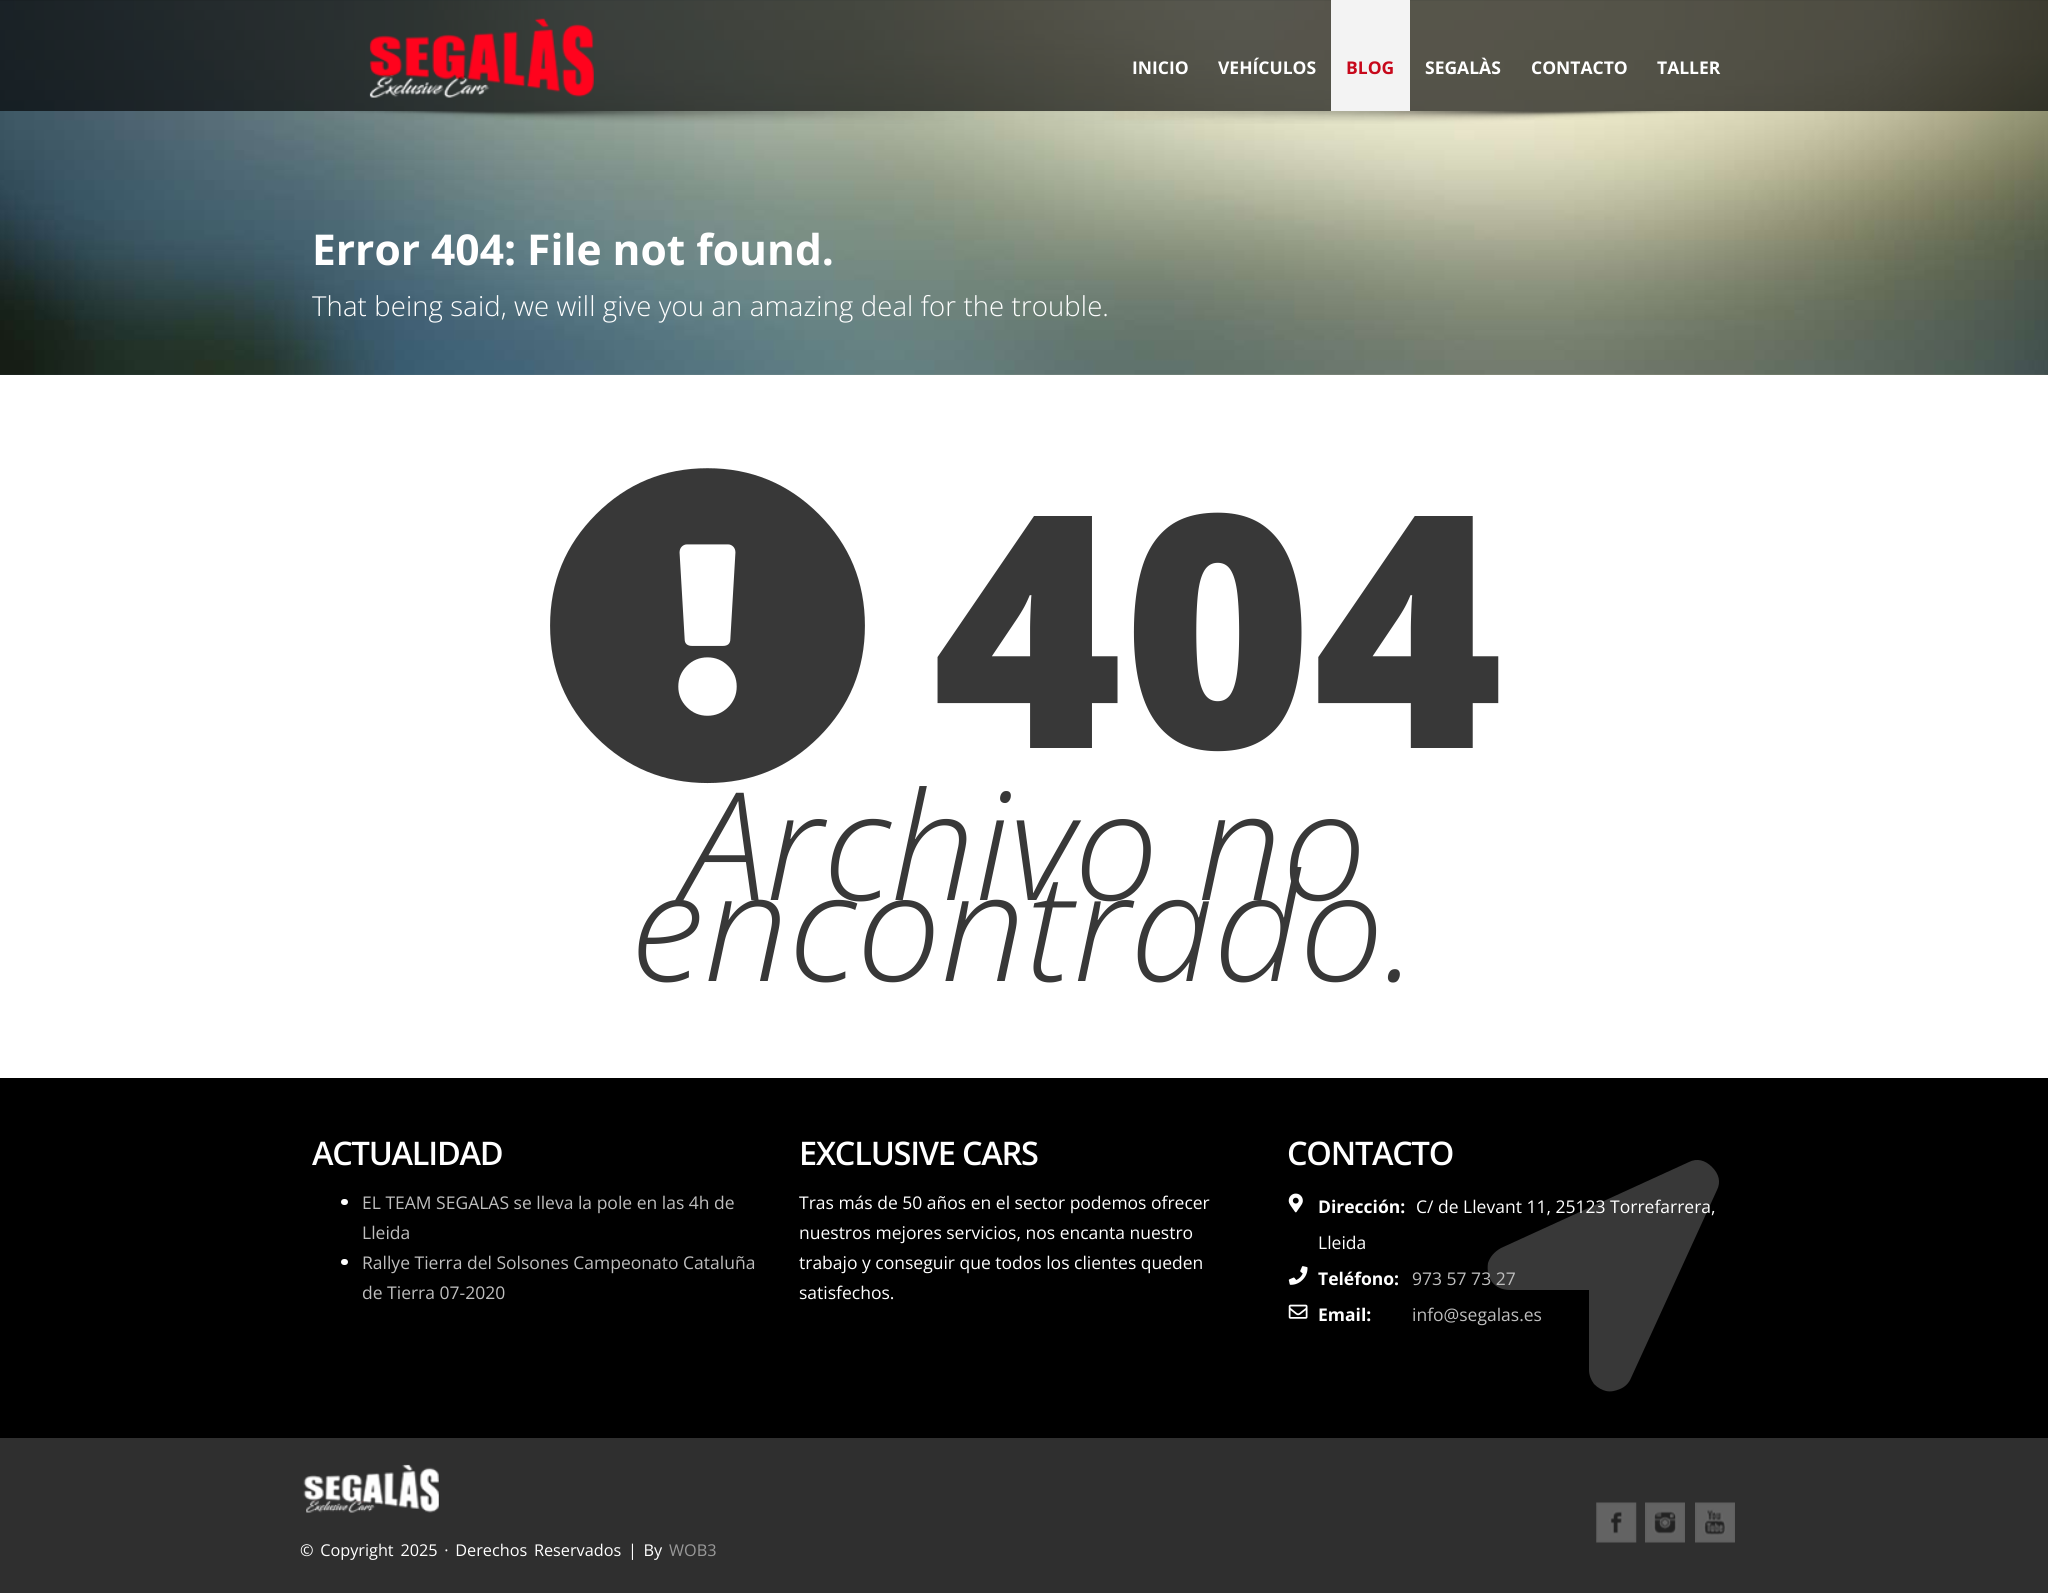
#include <cairo.h>
#include <math.h>
#include <stddef.h>

typedef struct { double x, y; const char *s; } line_t;

static void ink(cairo_t *ctx, unsigned color) {
    cairo_set_source_rgb(ctx, (color >> 16) / 255.0, (color >> 8 & 255) / 255.0, (color & 255) / 255.0);
}

static void write_spaced(cairo_t *ctx, double x, double y, const char *s, double letter, double word) {
    cairo_move_to(ctx, x, y);
    while (*s) {
        char ch[5] = {0};
        int n = 0;
        do ch[n++] = *s++; while ((*s & 0xC0) == 0x80);
        cairo_show_text(ctx, ch);
        cairo_rel_move_to(ctx, letter + word * (*ch == ' '), 0);
    }
}

static void round_path(cairo_t *ctx, double x, double y, double w, double h, double r) {
    cairo_new_sub_path(ctx);
    cairo_arc(ctx, x + w - r, y + h - r, r, 0, M_PI / 2);
    cairo_arc(ctx, x + r, y + h - r, r, M_PI / 2, M_PI);
    cairo_arc(ctx, x + r, y + r, r, M_PI, 1.5 * M_PI);
    cairo_arc(ctx, x + w - r, y + r, r, 1.5 * M_PI, 2 * M_PI);
    cairo_close_path(ctx);
}

static void paste(cairo_t *ctx, const char *path, double x, double y, double w, double h) {
    cairo_surface_t *image = cairo_image_surface_create_from_png(path);
    cairo_save(ctx);
    cairo_set_source_surface(ctx, image, x, y);
    cairo_rectangle(ctx, x, y, w, h);
    cairo_fill(ctx);
    cairo_restore(ctx);
    cairo_surface_destroy(image);
}

int main(void) {
    cairo_surface_t *surface = cairo_image_surface_create(CAIRO_FORMAT_RGB24, 2048, 1593);
    cairo_t *ctx = cairo_create(surface);
    cairo_font_options_t *options = cairo_font_options_create();
    cairo_font_options_set_hint_metrics(options, CAIRO_HINT_METRICS_OFF);
    cairo_font_options_set_hint_style(options, CAIRO_HINT_STYLE_NONE);
    cairo_set_font_options(ctx, options);
    cairo_set_miter_limit(ctx, 4);
    ink(ctx, 0xFFFFFF);
    cairo_paint(ctx);
    paste(ctx, "media/3.png", 0, 0, 2048, 375);
    cairo_set_source_rgba(ctx, 0, 0, 0, 0.65);
    cairo_rectangle(ctx, 0, 0, 2048, 111);
    cairo_fill(ctx);
    paste(ctx, "media/1.png", 369, 18, 225, 80);
    cairo_select_font_face(ctx, "Open Sans", CAIRO_FONT_SLANT_NORMAL, CAIRO_FONT_WEIGHT_BOLD);
    cairo_set_font_size(ctx, 17.5);
    ink(ctx, 0xFFFFFF);
    cairo_move_to(ctx, 1132, 74);
    cairo_show_text(ctx, "INICIO");
    cairo_move_to(ctx, 1218, 74);
    cairo_show_text(ctx, "VEHÍCULOS");
    ink(ctx, 0xF3F3F3);
    cairo_rectangle(ctx, 1331, 0, 79, 111);
    cairo_fill(ctx);
    ink(ctx, 0xC7081B);
    cairo_move_to(ctx, 1346, 74);
    cairo_show_text(ctx, "BLOG");
    ink(ctx, 0xFFFFFF);
    {
        static const line_t items[] = {
            {1425, 74, "SEGALÀS"},
            {1531, 74, "CONTACTO"},
            {1657, 74, "TALLER"},
        };
        for (size_t i = 0; i < sizeof items / sizeof *items; i++) {
            cairo_move_to(ctx, items[i].x, items[i].y);
            cairo_show_text(ctx, items[i].s);
        }
    }
    paste(ctx, "media/2.png", 340, 111, 1627, 13);
    cairo_set_font_size(ctx, 42.5);
    cairo_move_to(ctx, 312, 265);
    cairo_show_text(ctx, "Error 404: File not found.");
    cairo_select_font_face(ctx, "Open Sans Light", CAIRO_FONT_SLANT_NORMAL, CAIRO_FONT_WEIGHT_NORMAL);
    cairo_set_font_size(ctx, 27.5);
    write_spaced(ctx, 312, 316, "That being said, we will give you an amazing deal for the trouble.", 0.12, 0);
    paste(ctx, "media/4.png", 550, 468, 315, 316);
    cairo_select_font_face(ctx, "Open Sans ExtraBold", CAIRO_FONT_SLANT_NORMAL, CAIRO_FONT_WEIGHT_NORMAL);
    cairo_set_font_size(ctx, 325);
    ink(ctx, 0x383838);
    cairo_move_to(ctx, 932, 748);
    cairo_show_text(ctx, "404");
    cairo_select_font_face(ctx, "Open Sans Light", CAIRO_FONT_SLANT_ITALIC, CAIRO_FONT_WEIGHT_NORMAL);
    cairo_set_font_size(ctx, 150);
    cairo_move_to(ctx, 683, 900);
    cairo_show_text(ctx, "Archivo no");
    cairo_move_to(ctx, 630, 981);
    cairo_show_text(ctx, "encontrado.");
    ink(ctx, 0x000000);
    cairo_rectangle(ctx, 0, 1078, 2048, 360);
    cairo_fill(ctx);
    cairo_select_font_face(ctx, "Open Sans SemiBold", CAIRO_FONT_SLANT_NORMAL, CAIRO_FONT_WEIGHT_NORMAL);
    cairo_set_font_size(ctx, 32.5);
    ink(ctx, 0xFFFFFF);
    write_spaced(ctx, 312, 1165, "ACTUALIDAD", -1.25, 0);
    round_path(ctx, 341, 1199, 7, 6, 3);
    cairo_fill(ctx);
    cairo_select_font_face(ctx, "Open Sans", CAIRO_FONT_SLANT_NORMAL, CAIRO_FONT_WEIGHT_NORMAL);
    cairo_set_font_size(ctx, 17.5);
    ink(ctx, 0xBEBEBE);
    cairo_move_to(ctx, 362, 1209);
    cairo_show_text(ctx, "EL TEAM SEGALAS se lleva la pole en las 4h de");
    cairo_move_to(ctx, 362, 1239);
    cairo_show_text(ctx, "Lleida");
    ink(ctx, 0xFFFFFF);
    round_path(ctx, 341, 1259, 7, 6, 3);
    cairo_fill(ctx);
    ink(ctx, 0xBEBEBE);
    cairo_move_to(ctx, 362, 1269);
    cairo_show_text(ctx, "Rallye Tierra del Solsones Campeonato Cataluña");
    cairo_move_to(ctx, 362, 1299);
    cairo_show_text(ctx, "de Tierra 07-2020");
    cairo_select_font_face(ctx, "Open Sans SemiBold", CAIRO_FONT_SLANT_NORMAL, CAIRO_FONT_WEIGHT_NORMAL);
    cairo_set_font_size(ctx, 32.5);
    ink(ctx, 0xFFFFFF);
    write_spaced(ctx, 799, 1165, "EXCLUSIVE CARS", -1.25, 0);
    cairo_select_font_face(ctx, "Open Sans", CAIRO_FONT_SLANT_NORMAL, CAIRO_FONT_WEIGHT_NORMAL);
    cairo_set_font_size(ctx, 17.5);
    {
        static const line_t items[] = {
            {799, 1209, "Tras más de 50 años en el sector podemos ofrecer"},
            {799, 1239, "nuestros mejores servicios, nos encanta nuestro"},
            {799, 1269, "trabajo y conseguir que todos los clientes queden"},
            {799, 1299, "satisfechos."},
        };
        for (size_t i = 0; i < sizeof items / sizeof *items; i++) {
            cairo_move_to(ctx, items[i].x, items[i].y);
            cairo_show_text(ctx, items[i].s);
        }
    }
    cairo_select_font_face(ctx, "Open Sans SemiBold", CAIRO_FONT_SLANT_NORMAL, CAIRO_FONT_WEIGHT_NORMAL);
    cairo_set_font_size(ctx, 32.5);
    write_spaced(ctx, 1287, 1165, "CONTACTO", -1.25, 0);
    ink(ctx, 0x383838);
    cairo_new_path(ctx);
    cairo_move_to(ctx, 1689, 1162);
    cairo_curve_to(ctx, 1697, 1158, 1705, 1160, 1712, 1167);
    cairo_curve_to(ctx, 1719, 1174, 1721, 1182, 1717, 1190);
    cairo_line_to(ctx, 1631, 1378);
    cairo_curve_to(ctx, 1629, 1383, 1625, 1387, 1620, 1389);
    cairo_curve_to(ctx, 1615, 1391, 1611, 1392, 1606, 1391);
    cairo_curve_to(ctx, 1602, 1390, 1598, 1388, 1594, 1384);
    cairo_curve_to(ctx, 1591, 1380, 1589, 1375, 1589, 1370);
    cairo_line_to(ctx, 1589, 1290);
    cairo_line_to(ctx, 1510, 1290);
    cairo_curve_to(ctx, 1502, 1290, 1496, 1287, 1492, 1282);
    cairo_curve_to(ctx, 1488, 1276, 1487, 1270, 1488, 1263);
    cairo_curve_to(ctx, 1490, 1257, 1494, 1252, 1501, 1248);
    cairo_close_path(ctx);
    cairo_fill(ctx);
    paste(ctx, "media/5.png", 1288, 1193, 15, 20);
    cairo_select_font_face(ctx, "Open Sans", CAIRO_FONT_SLANT_NORMAL, CAIRO_FONT_WEIGHT_BOLD);
    cairo_set_font_size(ctx, 17.5);
    ink(ctx, 0xFFFFFF);
    cairo_move_to(ctx, 1318, 1213);
    cairo_show_text(ctx, "Dirección:");
    cairo_select_font_face(ctx, "Open Sans", CAIRO_FONT_SLANT_NORMAL, CAIRO_FONT_WEIGHT_NORMAL);
    cairo_move_to(ctx, 1416, 1213);
    cairo_show_text(ctx, "C/ de Llevant 11, 25123 Torrefarrera,");
    cairo_move_to(ctx, 1318, 1249);
    cairo_show_text(ctx, "Lleida");
    paste(ctx, "media/6.png", 1288, 1266, 20, 19);
    cairo_select_font_face(ctx, "Open Sans", CAIRO_FONT_SLANT_NORMAL, CAIRO_FONT_WEIGHT_BOLD);
    cairo_move_to(ctx, 1318, 1285);
    cairo_show_text(ctx, "Teléfono:");
    cairo_select_font_face(ctx, "Open Sans", CAIRO_FONT_SLANT_NORMAL, CAIRO_FONT_WEIGHT_NORMAL);
    ink(ctx, 0xBEBEBE);
    cairo_move_to(ctx, 1412, 1285);
    cairo_show_text(ctx, "973 57 73 27");
    paste(ctx, "media/7.png", 1288, 1304, 20, 15);
    cairo_select_font_face(ctx, "Open Sans", CAIRO_FONT_SLANT_NORMAL, CAIRO_FONT_WEIGHT_BOLD);
    ink(ctx, 0xFFFFFF);
    cairo_move_to(ctx, 1318, 1321);
    cairo_show_text(ctx, "Email:");
    cairo_select_font_face(ctx, "Open Sans", CAIRO_FONT_SLANT_NORMAL, CAIRO_FONT_WEIGHT_NORMAL);
    ink(ctx, 0xBEBEBE);
    cairo_move_to(ctx, 1412, 1321);
    cairo_show_text(ctx, "info@segalas.es");
    ink(ctx, 0x2F2F2F);
    cairo_rectangle(ctx, 0, 1438, 2048, 155);
    cairo_fill(ctx);
    paste(ctx, "media/8.png", 1596, 1502, 41, 41);
    paste(ctx, "media/9.png", 1645, 1502, 40, 41);
    paste(ctx, "media/10.png", 1695, 1502, 40, 41);
    paste(ctx, "media/11.png", 303, 1464, 136, 49);
    cairo_set_font_size(ctx, 16.25);
    ink(ctx, 0xFFFFFF);
    write_spaced(ctx, 300, 1556, "© Copyright 2025 · Derechos Reservados | By", 0, 2.5);
    ink(ctx, 0x999999);
    cairo_move_to(ctx, 669, 1556);
    cairo_show_text(ctx, "WOB3");
    cairo_surface_write_to_png(surface, "image.png");
    cairo_font_options_destroy(options);
    cairo_destroy(ctx);
    cairo_surface_destroy(surface);
    return 0;
}
